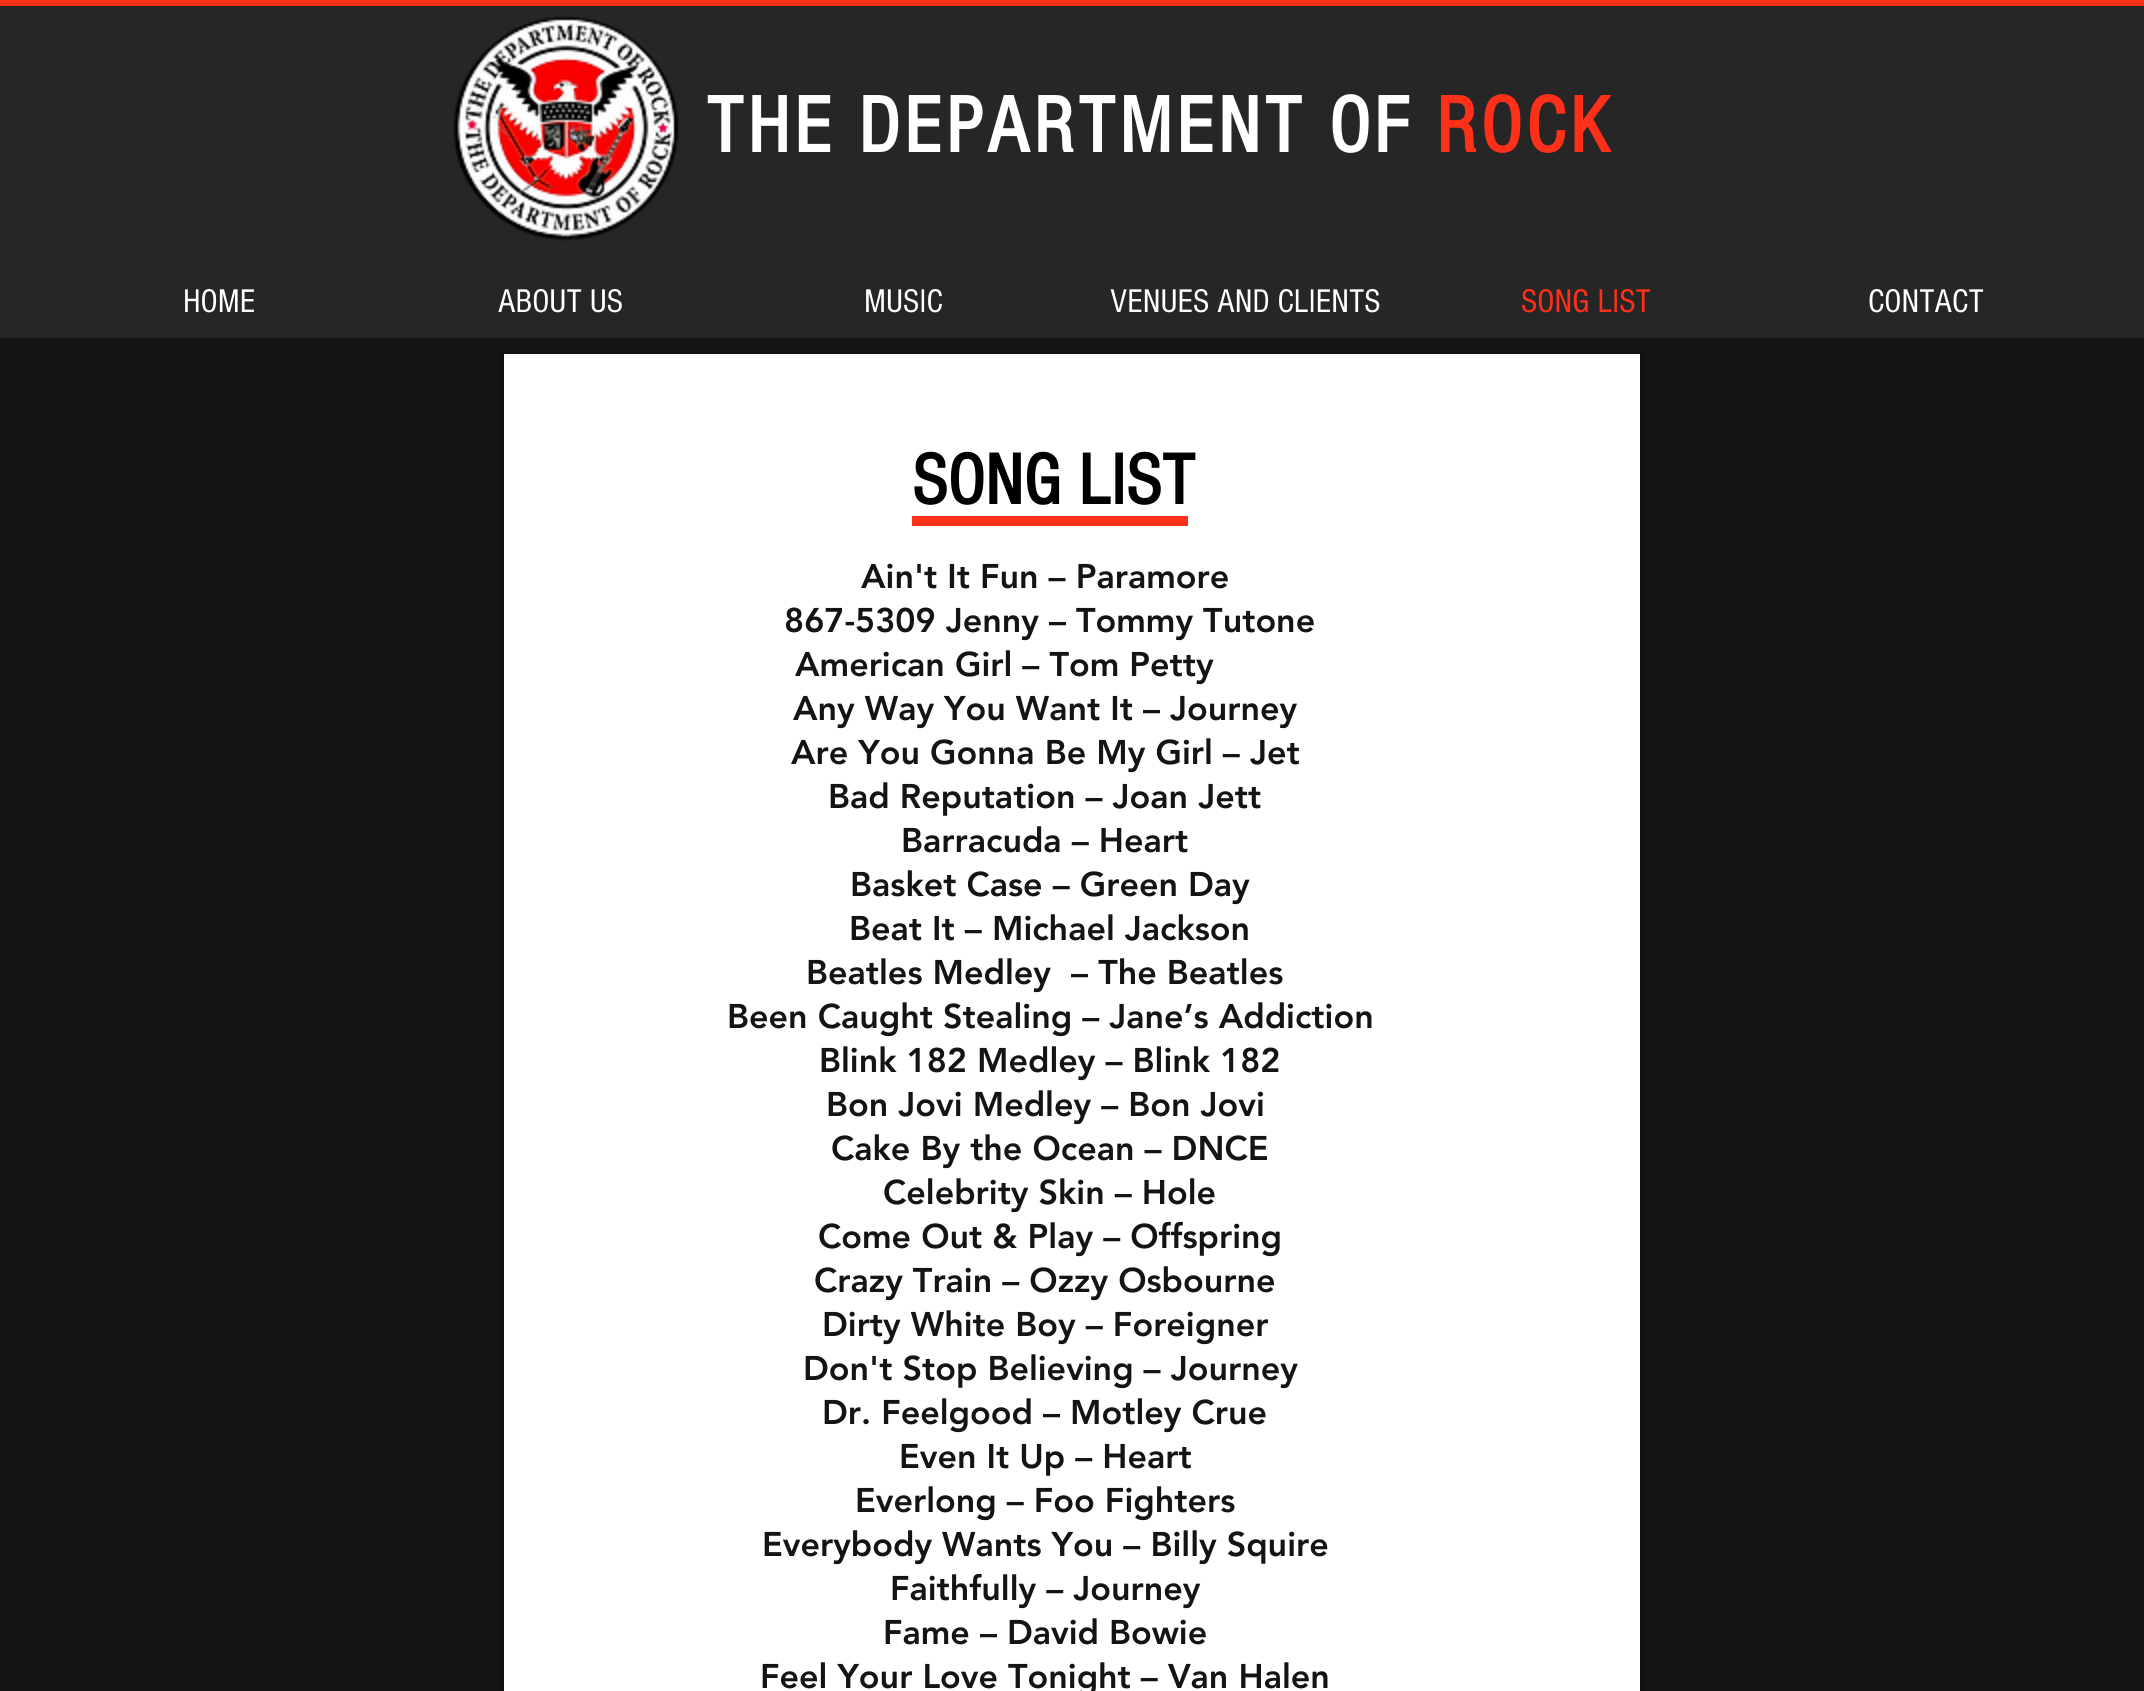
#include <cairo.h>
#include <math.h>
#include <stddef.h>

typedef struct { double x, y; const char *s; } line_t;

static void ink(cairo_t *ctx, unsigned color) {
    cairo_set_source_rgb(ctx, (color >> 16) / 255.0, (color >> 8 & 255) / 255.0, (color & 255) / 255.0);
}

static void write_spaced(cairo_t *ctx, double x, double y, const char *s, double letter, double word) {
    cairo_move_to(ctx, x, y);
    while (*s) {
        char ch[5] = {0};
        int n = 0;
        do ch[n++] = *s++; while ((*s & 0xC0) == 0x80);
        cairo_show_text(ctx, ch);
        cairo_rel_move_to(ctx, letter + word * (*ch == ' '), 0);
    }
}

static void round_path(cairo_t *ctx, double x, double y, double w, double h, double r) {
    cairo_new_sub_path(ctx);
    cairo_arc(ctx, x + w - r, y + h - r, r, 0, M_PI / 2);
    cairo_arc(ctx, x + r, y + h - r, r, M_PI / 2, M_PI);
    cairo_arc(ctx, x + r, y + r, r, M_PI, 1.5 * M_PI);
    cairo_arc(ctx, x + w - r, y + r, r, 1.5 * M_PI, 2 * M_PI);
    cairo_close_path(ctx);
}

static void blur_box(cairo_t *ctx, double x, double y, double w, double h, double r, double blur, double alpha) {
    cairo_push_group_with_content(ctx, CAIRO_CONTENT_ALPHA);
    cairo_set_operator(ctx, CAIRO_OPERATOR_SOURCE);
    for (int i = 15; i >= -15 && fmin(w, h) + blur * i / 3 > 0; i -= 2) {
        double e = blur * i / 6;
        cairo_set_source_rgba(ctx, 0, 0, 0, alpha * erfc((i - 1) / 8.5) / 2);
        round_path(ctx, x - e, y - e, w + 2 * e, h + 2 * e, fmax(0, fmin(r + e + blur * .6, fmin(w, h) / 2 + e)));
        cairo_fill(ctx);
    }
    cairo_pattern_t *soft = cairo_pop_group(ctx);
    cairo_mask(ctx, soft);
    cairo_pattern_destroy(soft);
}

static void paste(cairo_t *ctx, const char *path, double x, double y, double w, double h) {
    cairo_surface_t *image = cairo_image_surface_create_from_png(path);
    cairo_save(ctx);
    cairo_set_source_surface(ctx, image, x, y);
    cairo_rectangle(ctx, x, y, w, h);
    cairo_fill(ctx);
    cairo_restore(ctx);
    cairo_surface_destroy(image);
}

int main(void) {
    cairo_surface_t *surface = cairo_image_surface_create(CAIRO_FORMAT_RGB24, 2144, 1691);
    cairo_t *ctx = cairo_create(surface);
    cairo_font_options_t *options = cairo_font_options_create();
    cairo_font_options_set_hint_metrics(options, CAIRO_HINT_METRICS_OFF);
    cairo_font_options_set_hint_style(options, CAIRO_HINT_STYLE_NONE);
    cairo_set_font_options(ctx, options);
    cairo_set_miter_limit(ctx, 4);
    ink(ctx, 0x141414);
    cairo_paint(ctx);
    ink(ctx, 0x262626);
    cairo_rectangle(ctx, 0, 6, 2144, 332);
    cairo_fill(ctx);
    ink(ctx, 0xFF3019);
    cairo_rectangle(ctx, 0, 0, 2144, 6);
    cairo_fill(ctx);
    paste(ctx, "media/1.png", 144, 6, 148, 2);
    paste(ctx, "media/2.png", 292, 6, 1560, 2);
    paste(ctx, "media/3.png", 1852, 6, 148, 2);
    paste(ctx, "media/4.png", 453, 16, 226, 225);
    cairo_select_font_face(ctx, "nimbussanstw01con", CAIRO_FONT_SLANT_NORMAL, CAIRO_FONT_WEIGHT_BOLD);
    cairo_set_font_size(ctx, 82);
    ink(ctx, 0xFFFFFF);
    write_spaced(ctx, 706, 152, "THE DEPARTMENT OF", 4.1, 0);
    ink(ctx, 0xFF3019);
    write_spaced(ctx, 1436, 152, "ROCK", 4.1, 0);
    cairo_select_font_face(ctx, "nimbussanstw01con", CAIRO_FONT_SLANT_NORMAL, CAIRO_FONT_WEIGHT_NORMAL);
    cairo_set_font_size(ctx, 34);
    ink(ctx, 0xFFFFFF);
    {
        static const line_t items[] = {
            {183, 312, "HOME"},
            {498, 312, "ABOUT US"},
            {864, 312, "MUSIC"},
            {1110, 312, "VENUES AND CLIENTS"},
        };
        for (size_t i = 0; i < sizeof items / sizeof *items; i++) {
            cairo_move_to(ctx, items[i].x, items[i].y);
            cairo_show_text(ctx, items[i].s);
        }
    }
    ink(ctx, 0xFF3019);
    cairo_move_to(ctx, 1521, 312);
    cairo_show_text(ctx, "SONG LIST");
    ink(ctx, 0xFFFFFF);
    cairo_move_to(ctx, 1868, 312);
    cairo_show_text(ctx, "CONTACT");
    ink(ctx, 0x000000);
    blur_box(ctx, 504, 356, 1136, 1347, 0, 4, 0.6);
    ink(ctx, 0xFFFFFF);
    cairo_rectangle(ctx, 504, 354, 1136, 1337);
    cairo_fill(ctx);
    cairo_select_font_face(ctx, "nimbussanstw01con", CAIRO_FONT_SLANT_NORMAL, CAIRO_FONT_WEIGHT_BOLD);
    cairo_set_font_size(ctx, 74);
    ink(ctx, 0x000000);
    cairo_move_to(ctx, 912, 504);
    cairo_show_text(ctx, "SONG LIST");
    ink(ctx, 0xFF3019);
    cairo_rectangle(ctx, 912, 516, 276, 10);
    cairo_fill(ctx);
    cairo_select_font_face(ctx, "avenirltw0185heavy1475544 Black", CAIRO_FONT_SLANT_NORMAL, CAIRO_FONT_WEIGHT_NORMAL);
    cairo_set_font_size(ctx, 34);
    ink(ctx, 0x141414);
    {
        static const line_t items[] = {
            {861, 588, "Ain't It Fun – Paramore"},
            {784, 632, "867-5309 Jenny – Tommy Tutone"},
            {795, 676, "American Girl – Tom Petty"},
            {793, 720, "Any Way You Want It – Journey"},
            {791, 764, "Are You Gonna Be My Girl – Jet"},
            {828, 808, "Bad Reputation – Joan Jett"},
            {901, 852, "Barracuda – Heart"},
            {850, 896, "Basket Case – Green Day"},
            {849, 940, "Beat It – Michael Jackson"},
            {806, 984, "Beatles Medley  – The Beatles"},
            {727, 1028, "Been Caught Stealing – Jane’s Addiction"},
            {819, 1072, "Blink 182 Medley – Blink 182"},
            {826, 1116, "Bon Jovi Medley – Bon Jovi"},
            {831, 1160, "Cake By the Ocean – DNCE"},
            {883, 1204, "Celebrity Skin – Hole"},
            {818, 1248, "Come Out & Play – Offspring"},
            {814, 1292, "Crazy Train – Ozzy Osbourne"},
            {822, 1336, "Dirty White Boy – Foreigner"},
            {803, 1380, "Don't Stop Believing – Journey"},
            {822, 1424, "Dr. Feelgood – Motley Crue"},
            {899, 1468, "Even It Up – Heart"},
            {855, 1512, "Everlong – Foo Fighters"},
            {762, 1556, "Everybody Wants You – Billy Squire"},
            {890, 1600, "Faithfully – Journey"},
            {883, 1644, "Fame – David Bowie"},
            {760, 1688, "Feel Your Love Tonight – Van Halen"},
        };
        for (size_t i = 0; i < sizeof items / sizeof *items; i++) {
            cairo_move_to(ctx, items[i].x, items[i].y);
            cairo_show_text(ctx, items[i].s);
        }
    }
    cairo_surface_write_to_png(surface, "image.png");
    cairo_font_options_destroy(options);
    cairo_destroy(ctx);
    cairo_surface_destroy(surface);
    return 0;
}
